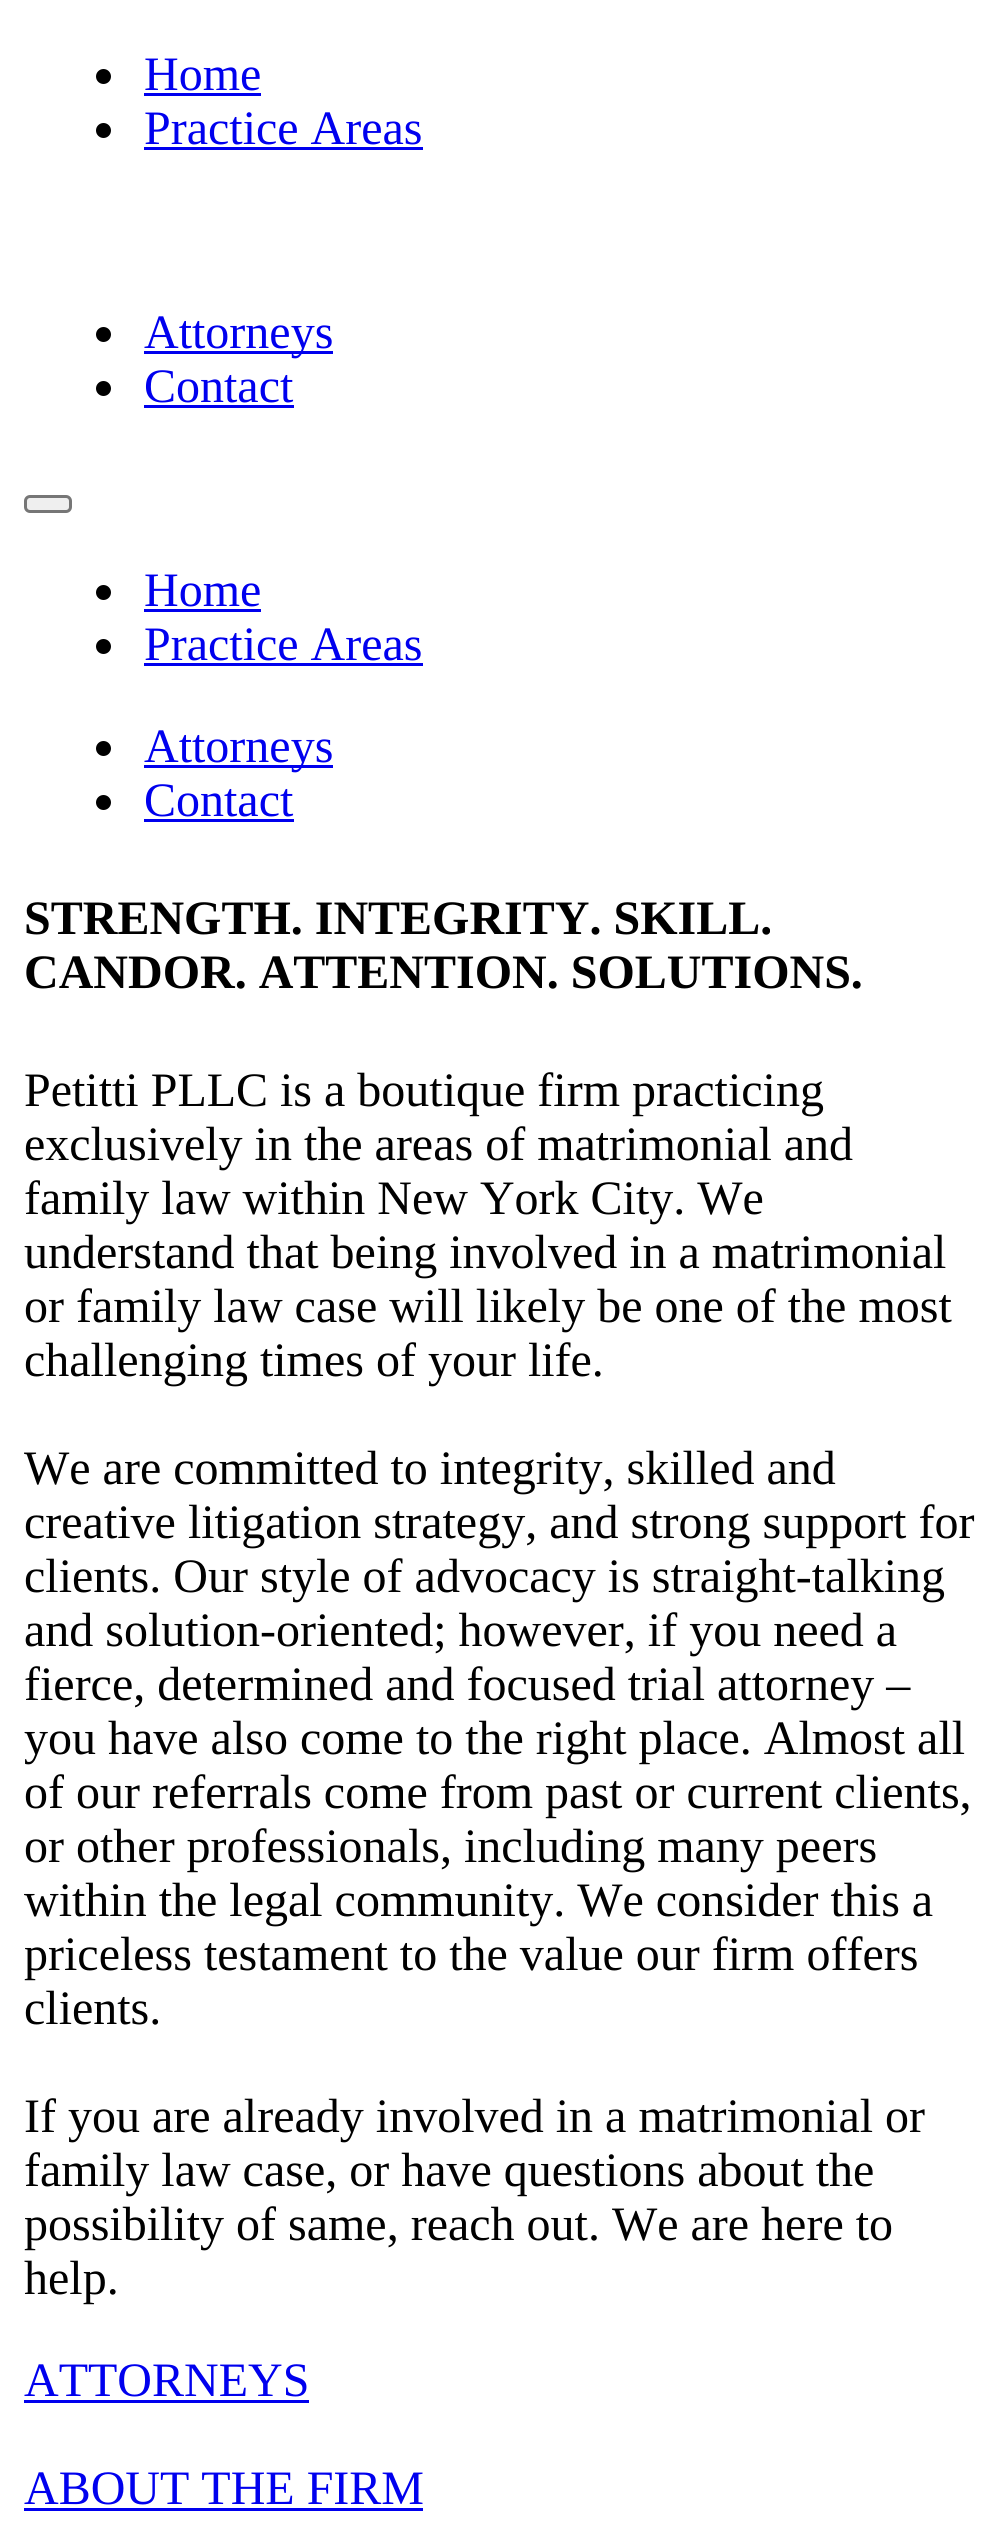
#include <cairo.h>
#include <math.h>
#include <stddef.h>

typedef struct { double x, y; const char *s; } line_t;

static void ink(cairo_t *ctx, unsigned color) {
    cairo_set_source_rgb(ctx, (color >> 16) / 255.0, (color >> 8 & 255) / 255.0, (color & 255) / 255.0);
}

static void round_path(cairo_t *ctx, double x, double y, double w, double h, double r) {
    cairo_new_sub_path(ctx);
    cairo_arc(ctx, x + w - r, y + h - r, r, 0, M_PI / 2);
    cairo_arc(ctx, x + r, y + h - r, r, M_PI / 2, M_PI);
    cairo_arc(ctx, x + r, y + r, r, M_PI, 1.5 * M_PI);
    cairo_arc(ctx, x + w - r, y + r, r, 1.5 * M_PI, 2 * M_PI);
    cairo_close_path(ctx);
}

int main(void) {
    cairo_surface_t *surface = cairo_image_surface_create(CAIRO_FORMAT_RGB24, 1005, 2540);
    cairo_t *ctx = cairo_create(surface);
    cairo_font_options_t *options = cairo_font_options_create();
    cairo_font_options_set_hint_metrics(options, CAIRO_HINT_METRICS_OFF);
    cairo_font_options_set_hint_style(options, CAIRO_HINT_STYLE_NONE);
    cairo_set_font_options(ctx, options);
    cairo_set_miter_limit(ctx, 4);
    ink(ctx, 0xFFFFFF);
    cairo_paint(ctx);
    ink(ctx, 0x000000);
    cairo_arc(ctx, 103.5, 76.5, 7.5, 0, 2 * M_PI);
    cairo_fill(ctx);
    cairo_select_font_face(ctx, "Liberation Serif", CAIRO_FONT_SLANT_NORMAL, CAIRO_FONT_WEIGHT_NORMAL);
    cairo_set_font_size(ctx, 48);
    ink(ctx, 0x0000EE);
    cairo_move_to(ctx, 144, 90);
    cairo_show_text(ctx, "Home");
    cairo_rectangle(ctx, 144, 93, 117, 3);
    cairo_fill(ctx);
    ink(ctx, 0x000000);
    cairo_arc(ctx, 103.5, 130.5, 7.5, 0, 2 * M_PI);
    cairo_fill(ctx);
    ink(ctx, 0x0000EE);
    cairo_move_to(ctx, 144, 144);
    cairo_show_text(ctx, "Practice Areas");
    cairo_rectangle(ctx, 144, 147, 279, 3);
    cairo_fill(ctx);
    ink(ctx, 0x000000);
    cairo_arc(ctx, 103.5, 334.5, 7.5, 0, 2 * M_PI);
    cairo_fill(ctx);
    ink(ctx, 0x0000EE);
    cairo_rectangle(ctx, 144, 351, 189, 3);
    cairo_fill(ctx);
    cairo_move_to(ctx, 144, 348);
    cairo_show_text(ctx, "Attorneys");
    ink(ctx, 0x000000);
    cairo_new_path(ctx);
    cairo_arc(ctx, 103.5, 388.5, 7.5, 0, 2 * M_PI);
    cairo_fill(ctx);
    ink(ctx, 0x0000EE);
    cairo_move_to(ctx, 144, 402);
    cairo_show_text(ctx, "Contact");
    cairo_rectangle(ctx, 144, 405, 150, 3);
    cairo_fill(ctx);
    ink(ctx, 0xEFEFEF);
    round_path(ctx, 25.5, 496.5, 45, 15, 4.5);
    cairo_fill_preserve(ctx);
    ink(ctx, 0x767676);
    cairo_set_line_width(ctx, 3);
    cairo_stroke(ctx);
    ink(ctx, 0x000000);
    cairo_arc(ctx, 103.5, 592.5, 7.5, 0, 2 * M_PI);
    cairo_fill(ctx);
    ink(ctx, 0x0000EE);
    cairo_move_to(ctx, 144, 606);
    cairo_show_text(ctx, "Home");
    cairo_rectangle(ctx, 144, 609, 117, 3);
    cairo_fill(ctx);
    ink(ctx, 0x000000);
    cairo_arc(ctx, 103.5, 646.5, 7.5, 0, 2 * M_PI);
    cairo_fill(ctx);
    ink(ctx, 0x0000EE);
    cairo_move_to(ctx, 144, 660);
    cairo_show_text(ctx, "Practice Areas");
    cairo_rectangle(ctx, 144, 663, 279, 3);
    cairo_fill(ctx);
    ink(ctx, 0x000000);
    cairo_arc(ctx, 103.5, 748.5, 7.5, 0, 2 * M_PI);
    cairo_fill(ctx);
    ink(ctx, 0x0000EE);
    cairo_rectangle(ctx, 144, 765, 189, 3);
    cairo_fill(ctx);
    cairo_move_to(ctx, 144, 762);
    cairo_show_text(ctx, "Attorneys");
    ink(ctx, 0x000000);
    cairo_new_path(ctx);
    cairo_arc(ctx, 103.5, 802.5, 7.5, 0, 2 * M_PI);
    cairo_fill(ctx);
    ink(ctx, 0x0000EE);
    cairo_move_to(ctx, 144, 816);
    cairo_show_text(ctx, "Contact");
    cairo_rectangle(ctx, 144, 819, 150, 3);
    cairo_fill(ctx);
    cairo_select_font_face(ctx, "Liberation Serif", CAIRO_FONT_SLANT_NORMAL, CAIRO_FONT_WEIGHT_BOLD);
    ink(ctx, 0x000000);
    cairo_move_to(ctx, 24, 934);
    cairo_show_text(ctx, "STRENGTH. INTEGRITY. SKILL.");
    cairo_move_to(ctx, 24, 988);
    cairo_show_text(ctx, "CANDOR. ATTENTION. SOLUTIONS.");
    cairo_select_font_face(ctx, "Liberation Serif", CAIRO_FONT_SLANT_NORMAL, CAIRO_FONT_WEIGHT_NORMAL);
    {
        static const line_t items[] = {
            {24, 1106, "Petitti PLLC is a boutique firm practicing"},
            {24, 1160, "exclusively in the areas of matrimonial and"},
            {24, 1214, "family law within New York City. We"},
            {24, 1268, "understand that being involved in a matrimonial"},
            {24, 1322, "or family law case will likely be one of the most"},
            {24, 1376, "challenging times of your life."},
            {24, 1484, "We are committed to integrity, skilled and"},
            {24, 1538, "creative litigation strategy, and strong support for"},
            {24, 1592, "clients. Our style of advocacy is straight-talking"},
            {24, 1646, "and solution-oriented; however, if you need a"},
            {24, 1700, "fierce, determined and focused trial attorney –"},
            {24, 1754, "you have also come to the right place. Almost all"},
            {24, 1808, "of our referrals come from past or current clients,"},
            {24, 1862, "or other professionals, including many peers"},
            {24, 1916, "within the legal community. We consider this a"},
            {24, 1970, "priceless testament to the value our firm offers"},
            {24, 2024, "clients."},
            {24, 2132, "If you are already involved in a matrimonial or"},
            {24, 2186, "family law case, or have questions about the"},
            {24, 2240, "possibility of same, reach out. We are here to"},
            {24, 2294, "help."},
        };
        for (size_t i = 0; i < sizeof items / sizeof *items; i++) {
            cairo_move_to(ctx, items[i].x, items[i].y);
            cairo_show_text(ctx, items[i].s);
        }
    }
    ink(ctx, 0x0000EE);
    cairo_move_to(ctx, 24, 2396);
    cairo_show_text(ctx, "ATTORNEYS");
    cairo_rectangle(ctx, 24, 2400, 285, 3);
    cairo_fill(ctx);
    cairo_move_to(ctx, 24, 2504);
    cairo_show_text(ctx, "ABOUT THE FIRM");
    cairo_rectangle(ctx, 24, 2508, 399, 3);
    cairo_fill(ctx);
    cairo_surface_write_to_png(surface, "image.png");
    cairo_font_options_destroy(options);
    cairo_destroy(ctx);
    cairo_surface_destroy(surface);
    return 0;
}
